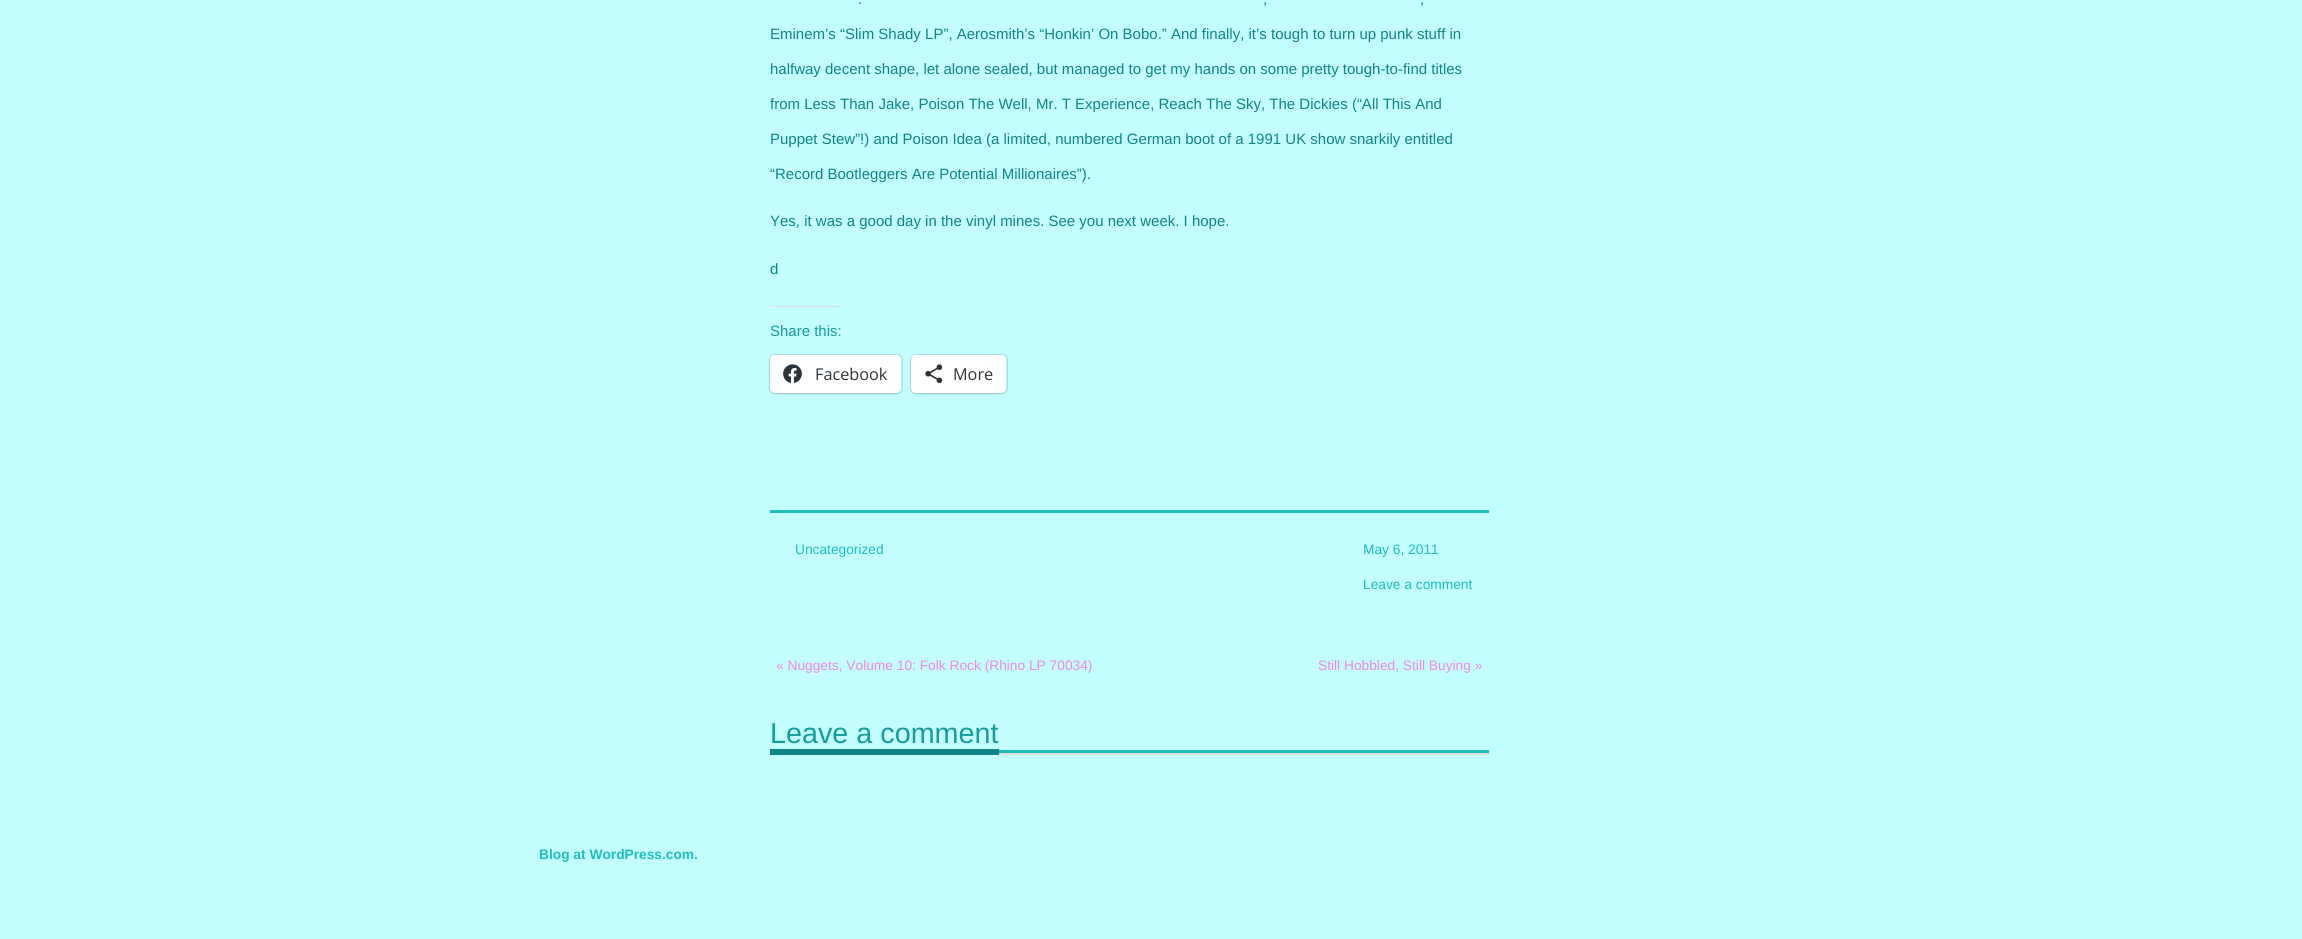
#include <cairo.h>
#include <math.h>
#include <stddef.h>

typedef struct { double x, y; const char *s; } line_t;

static void ink(cairo_t *ctx, unsigned color) {
    cairo_set_source_rgb(ctx, (color >> 16) / 255.0, (color >> 8 & 255) / 255.0, (color & 255) / 255.0);
}

static void round_path(cairo_t *ctx, double x, double y, double w, double h, double r) {
    cairo_new_sub_path(ctx);
    cairo_arc(ctx, x + w - r, y + h - r, r, 0, M_PI / 2);
    cairo_arc(ctx, x + r, y + h - r, r, M_PI / 2, M_PI);
    cairo_arc(ctx, x + r, y + r, r, M_PI, 1.5 * M_PI);
    cairo_arc(ctx, x + w - r, y + r, r, 1.5 * M_PI, 2 * M_PI);
    cairo_close_path(ctx);
}

static void blur_box(cairo_t *ctx, double x, double y, double w, double h, double r, double blur, double alpha) {
    cairo_push_group_with_content(ctx, CAIRO_CONTENT_ALPHA);
    cairo_set_operator(ctx, CAIRO_OPERATOR_SOURCE);
    for (int i = 15; i >= -15 && fmin(w, h) + blur * i / 3 > 0; i -= 2) {
        double e = blur * i / 6;
        cairo_set_source_rgba(ctx, 0, 0, 0, alpha * erfc((i - 1) / 8.5) / 2);
        round_path(ctx, x - e, y - e, w + 2 * e, h + 2 * e, fmax(0, fmin(r + e + blur * .6, fmin(w, h) / 2 + e)));
        cairo_fill(ctx);
    }
    cairo_pattern_t *soft = cairo_pop_group(ctx);
    cairo_mask(ctx, soft);
    cairo_pattern_destroy(soft);
}

static void paste(cairo_t *ctx, const char *path, double x, double y, double w, double h) {
    cairo_surface_t *image = cairo_image_surface_create_from_png(path);
    cairo_save(ctx);
    cairo_set_source_surface(ctx, image, x, y);
    cairo_rectangle(ctx, x, y, w, h);
    cairo_fill(ctx);
    cairo_restore(ctx);
    cairo_surface_destroy(image);
}

int main(void) {
    cairo_surface_t *surface = cairo_image_surface_create(CAIRO_FORMAT_RGB24, 2302, 939);
    cairo_t *ctx = cairo_create(surface);
    cairo_font_options_t *options = cairo_font_options_create();
    cairo_font_options_set_hint_metrics(options, CAIRO_HINT_METRICS_OFF);
    cairo_font_options_set_hint_style(options, CAIRO_HINT_STYLE_NONE);
    cairo_set_font_options(ctx, options);
    cairo_set_miter_limit(ctx, 4);
    ink(ctx, 0xC4FFFF);
    cairo_paint(ctx);
    cairo_select_font_face(ctx, "Liberation Sans", CAIRO_FONT_SLANT_NORMAL, CAIRO_FONT_WEIGHT_NORMAL);
    cairo_set_font_size(ctx, 15);
    ink(ctx, 0x0E8585);
    {
        static const line_t items[] = {
            {858, 4, "."},
            {1263, 4, ","},
            {1420, 4, ","},
            {770, 39, "Eminem’s “Slim Shady LP”, Aerosmith’s “Honkin’ On Bobo.” And finally, it’s tough to turn up punk stuff in"},
            {770, 74, "halfway decent shape, let alone sealed, but managed to get my hands on some pretty tough-to-find titles"},
            {770, 109, "from Less Than Jake, Poison The Well, Mr. T Experience, Reach The Sky, The Dickies (“All This And"},
            {770, 144, "Puppet Stew”!) and Poison Idea (a limited, numbered German boot of a 1991 UK show snarkily entitled"},
            {770, 179, "“Record Bootleggers Are Potential Millionaires”)."},
            {770, 226, "Yes, it was a good day in the vinyl mines. See you next week. I hope."},
            {770, 274, "d"},
        };
        for (size_t i = 0; i < sizeof items / sizeof *items; i++) {
            cairo_move_to(ctx, items[i].x, items[i].y);
            cairo_show_text(ctx, items[i].s);
        }
    }
    ink(ctx, 0xDCDCDE);
    cairo_rectangle(ctx, 770, 306, 71, 1);
    cairo_fill(ctx);
    ink(ctx, 0x149D9D);
    cairo_move_to(ctx, 770, 336);
    cairo_show_text(ctx, "Share this:");
    round_path(ctx, 769.5, 354.5, 133, 39, 5.5);
    ink(ctx, 0xACE0E0);
    cairo_set_line_width(ctx, 1);
    cairo_stroke(ctx);
    ink(ctx, 0x000000);
    blur_box(ctx, 770, 356, 131, 38, 5, 1, 0.12);
    ink(ctx, 0xFFFFFF);
    round_path(ctx, 770, 355, 131, 38, 5);
    cairo_fill(ctx);
    paste(ctx, "media/1.png", 783, 364, 19, 19);
    cairo_select_font_face(ctx, "Open Sans", CAIRO_FONT_SLANT_NORMAL, CAIRO_FONT_WEIGHT_NORMAL);
    cairo_set_font_size(ctx, 16.25);
    ink(ctx, 0x2C3338);
    cairo_move_to(ctx, 815, 380);
    cairo_show_text(ctx, "Facebook");
    round_path(ctx, 910.5, 354.5, 97, 39, 5.5);
    ink(ctx, 0xACE0E0);
    cairo_stroke(ctx);
    ink(ctx, 0x000000);
    blur_box(ctx, 911, 356, 95, 38, 5, 1, 0.12);
    ink(ctx, 0xFFFFFF);
    round_path(ctx, 911, 355, 95, 38, 5);
    cairo_fill(ctx);
    paste(ctx, "media/2.png", 925, 364, 18, 20);
    ink(ctx, 0x2C3338);
    cairo_move_to(ctx, 953, 380);
    cairo_show_text(ctx, "More");
    ink(ctx, 0x1CBEBE);
    cairo_rectangle(ctx, 770, 510, 719, 3);
    cairo_fill(ctx);
    cairo_select_font_face(ctx, "Liberation Sans", CAIRO_FONT_SLANT_NORMAL, CAIRO_FONT_WEIGHT_NORMAL);
    cairo_set_font_size(ctx, 13.75);
    {
        static const line_t items[] = {
            {795, 554, "Uncategorized"},
            {1363, 554, "May 6, 2011"},
            {1363, 589, "Leave a comment"},
        };
        for (size_t i = 0; i < sizeof items / sizeof *items; i++) {
            cairo_move_to(ctx, items[i].x, items[i].y);
            cairo_show_text(ctx, items[i].s);
        }
    }
    ink(ctx, 0xF286E4);
    cairo_move_to(ctx, 776, 670);
    cairo_show_text(ctx, "« Nuggets, Volume 10: Folk Rock (Rhino LP 70034)");
    cairo_move_to(ctx, 1318, 670);
    cairo_show_text(ctx, "Still Hobbled, Still Buying »");
    ink(ctx, 0x1CBEBE);
    cairo_rectangle(ctx, 999, 750, 490, 3);
    cairo_fill(ctx);
    cairo_set_font_size(ctx, 28.75);
    ink(ctx, 0x149D9D);
    cairo_move_to(ctx, 770, 743);
    cairo_show_text(ctx, "Leave a comment");
    ink(ctx, 0x0E8585);
    cairo_rectangle(ctx, 770, 749, 229, 6);
    cairo_fill(ctx);
    ink(ctx, 0xDCDCDE);
    cairo_rectangle(ctx, 999, 753, 490, 2);
    cairo_fill(ctx);
    cairo_select_font_face(ctx, "Liberation Sans", CAIRO_FONT_SLANT_NORMAL, CAIRO_FONT_WEIGHT_BOLD);
    cairo_set_font_size(ctx, 13.75);
    ink(ctx, 0x1CBEBE);
    cairo_move_to(ctx, 539, 859);
    cairo_show_text(ctx, "Blog at WordPress.com.");
    cairo_surface_write_to_png(surface, "image.png");
    cairo_font_options_destroy(options);
    cairo_destroy(ctx);
    cairo_surface_destroy(surface);
    return 0;
}
